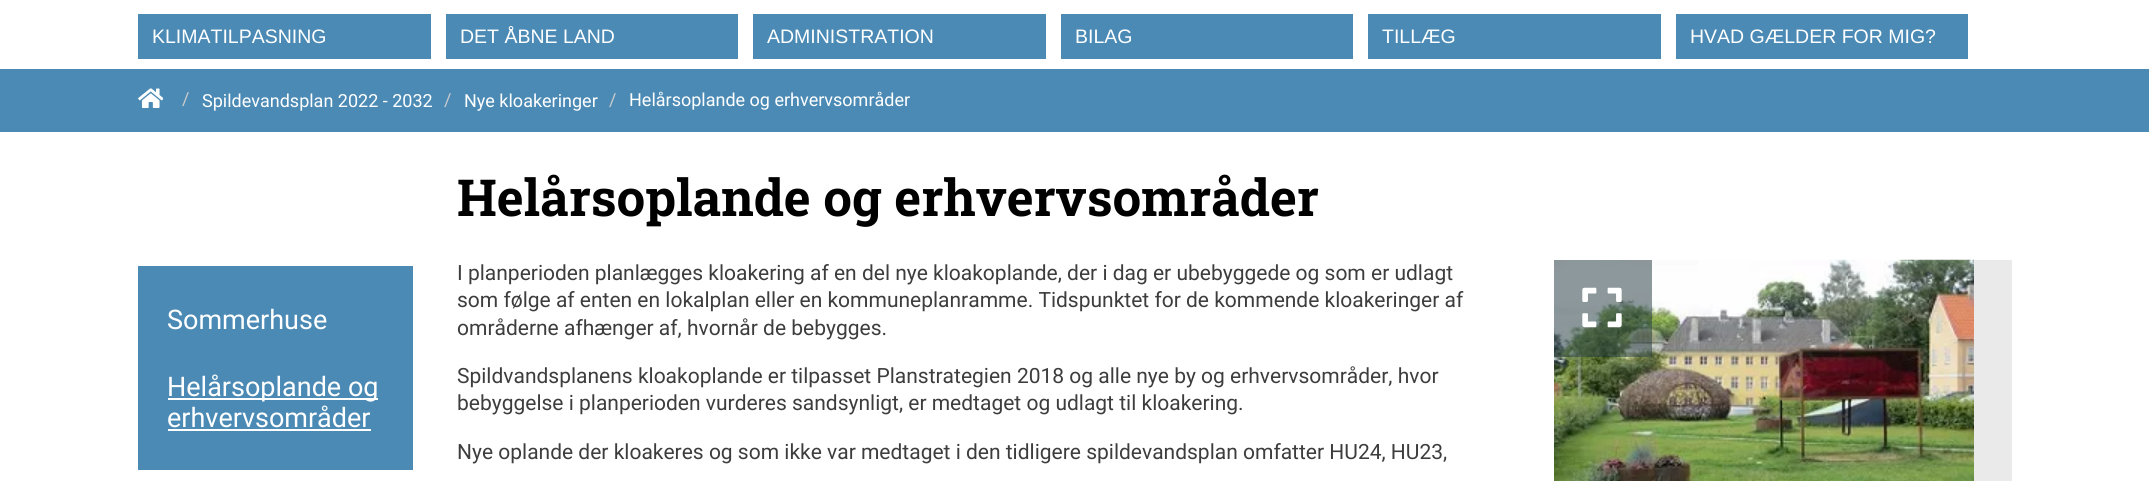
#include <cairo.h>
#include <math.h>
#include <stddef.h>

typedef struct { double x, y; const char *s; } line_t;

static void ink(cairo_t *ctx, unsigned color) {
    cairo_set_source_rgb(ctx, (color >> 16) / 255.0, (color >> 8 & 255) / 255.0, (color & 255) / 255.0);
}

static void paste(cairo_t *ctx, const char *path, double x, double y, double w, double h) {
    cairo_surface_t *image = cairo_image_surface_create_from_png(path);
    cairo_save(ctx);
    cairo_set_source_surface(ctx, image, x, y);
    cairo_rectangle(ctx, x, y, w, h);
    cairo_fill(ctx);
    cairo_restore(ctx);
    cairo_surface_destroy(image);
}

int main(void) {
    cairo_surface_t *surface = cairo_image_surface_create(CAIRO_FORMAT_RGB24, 2149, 481);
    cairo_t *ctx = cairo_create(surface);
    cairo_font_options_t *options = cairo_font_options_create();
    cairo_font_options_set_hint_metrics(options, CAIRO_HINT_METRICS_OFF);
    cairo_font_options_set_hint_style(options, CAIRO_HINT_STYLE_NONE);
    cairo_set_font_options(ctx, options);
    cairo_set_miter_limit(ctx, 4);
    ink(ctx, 0xFFFFFF);
    cairo_paint(ctx);
    ink(ctx, 0x4A8AB5);
    cairo_rectangle(ctx, 0, 69, 2149, 63);
    cairo_fill(ctx);
    cairo_rectangle(ctx, 138, 14, 293, 45);
    cairo_fill(ctx);
    cairo_select_font_face(ctx, "Liberation Sans", CAIRO_FONT_SLANT_NORMAL, CAIRO_FONT_WEIGHT_NORMAL);
    cairo_set_font_size(ctx, 19.5);
    ink(ctx, 0xFFFFFF);
    cairo_move_to(ctx, 152, 43);
    cairo_show_text(ctx, "KLIMATILPASNING");
    ink(ctx, 0x4A8AB5);
    cairo_rectangle(ctx, 446, 14, 292, 45);
    cairo_fill(ctx);
    ink(ctx, 0xFFFFFF);
    cairo_move_to(ctx, 460, 43);
    cairo_show_text(ctx, "DET ÅBNE LAND");
    ink(ctx, 0x4A8AB5);
    cairo_rectangle(ctx, 753, 14, 293, 45);
    cairo_fill(ctx);
    ink(ctx, 0xFFFFFF);
    cairo_move_to(ctx, 767, 43);
    cairo_show_text(ctx, "ADMINISTRATION");
    ink(ctx, 0x4A8AB5);
    cairo_rectangle(ctx, 1061, 14, 292, 45);
    cairo_fill(ctx);
    ink(ctx, 0xFFFFFF);
    cairo_move_to(ctx, 1075, 43);
    cairo_show_text(ctx, "BILAG");
    ink(ctx, 0x4A8AB5);
    cairo_rectangle(ctx, 1368, 14, 293, 45);
    cairo_fill(ctx);
    ink(ctx, 0xFFFFFF);
    cairo_move_to(ctx, 1382, 43);
    cairo_show_text(ctx, "TILLÆG");
    ink(ctx, 0x4A8AB5);
    cairo_rectangle(ctx, 1676, 14, 292, 45);
    cairo_fill(ctx);
    ink(ctx, 0xFFFFFF);
    cairo_move_to(ctx, 1690, 43);
    cairo_show_text(ctx, "HVAD GÆLDER FOR MIG?");
    paste(ctx, "media/1.png", 138, 88, 26, 20);
    cairo_select_font_face(ctx, "Roboto", CAIRO_FONT_SLANT_NORMAL, CAIRO_FONT_WEIGHT_NORMAL);
    cairo_set_font_size(ctx, 18);
    ink(ctx, 0xCCCCCC);
    cairo_move_to(ctx, 182, 105);
    cairo_show_text(ctx, "/");
    ink(ctx, 0xFFFFFF);
    cairo_move_to(ctx, 202, 107);
    cairo_show_text(ctx, "Spildevandsplan 2022 - 2032");
    ink(ctx, 0xCCCCCC);
    cairo_move_to(ctx, 444, 106);
    cairo_show_text(ctx, "/");
    ink(ctx, 0xFFFFFF);
    cairo_move_to(ctx, 464, 107);
    cairo_show_text(ctx, "Nye kloakeringer");
    ink(ctx, 0xCCCCCC);
    cairo_move_to(ctx, 609, 106);
    cairo_show_text(ctx, "/");
    ink(ctx, 0xFFFFFF);
    cairo_move_to(ctx, 629, 106);
    cairo_show_text(ctx, "Helårsoplande og erhvervsområder");
    ink(ctx, 0x4A8AB5);
    cairo_rectangle(ctx, 138, 266, 275, 204);
    cairo_fill(ctx);
    cairo_set_font_size(ctx, 27);
    ink(ctx, 0xFFFFFF);
    cairo_move_to(ctx, 167, 329);
    cairo_show_text(ctx, "Sommerhuse");
    cairo_rectangle(ctx, 168, 398, 210, 2);
    cairo_fill(ctx);
    cairo_move_to(ctx, 167, 396);
    cairo_show_text(ctx, "Helårsoplande og");
    cairo_move_to(ctx, 167, 427);
    cairo_show_text(ctx, "erhvervsområder");
    cairo_rectangle(ctx, 168, 429, 203, 2);
    cairo_fill(ctx);
    cairo_select_font_face(ctx, "Roboto Slab", CAIRO_FONT_SLANT_NORMAL, CAIRO_FONT_WEIGHT_BOLD);
    cairo_set_font_size(ctx, 51);
    ink(ctx, 0x000000);
    cairo_move_to(ctx, 457, 216);
    cairo_show_text(ctx, "Helårsoplande og erhvervsområder");
    cairo_select_font_face(ctx, "Roboto", CAIRO_FONT_SLANT_NORMAL, CAIRO_FONT_WEIGHT_NORMAL);
    cairo_set_font_size(ctx, 21);
    ink(ctx, 0x3D3D3D);
    {
        static const line_t items[] = {
            {457, 280, "I planperioden planlægges kloakering af en del nye kloakoplande, der i dag er ubebyggede og som er udlagt"},
            {457, 307, "som følge af enten en lokalplan eller en kommuneplanramme. Tidspunktet for de kommende kloakeringer af"},
            {457, 335, "områderne afhænger af, hvornår de bebygges."},
            {457, 383, "Spildvandsplanens kloakoplande er tilpasset Planstrategien 2018 og alle nye by og erhvervsområder, hvor"},
            {457, 410, "bebyggelse i planperioden vurderes sandsynligt, er medtaget og udlagt til kloakering."},
            {457, 459, "Nye oplande der kloakeres og som ikke var medtaget i den tidligere spildevandsplan omfatter HU24, HU23,"},
        };
        for (size_t i = 0; i < sizeof items / sizeof *items; i++) {
            cairo_move_to(ctx, items[i].x, items[i].y);
            cairo_show_text(ctx, items[i].s);
        }
    }
    ink(ctx, 0xEAEAEA);
    cairo_rectangle(ctx, 1974, 260, 38, 221);
    cairo_fill(ctx);
    paste(ctx, "media/2.png", 1554, 259, 420, 222);
    cairo_set_source_rgba(ctx, 0.114, 0.2, 0.231, 0.5);
    cairo_rectangle(ctx, 1554, 260, 98, 97);
    cairo_fill(ctx);
    paste(ctx, "media/3.png", 1582, 287, 40, 41);
    cairo_surface_write_to_png(surface, "image.png");
    cairo_font_options_destroy(options);
    cairo_destroy(ctx);
    cairo_surface_destroy(surface);
    return 0;
}
